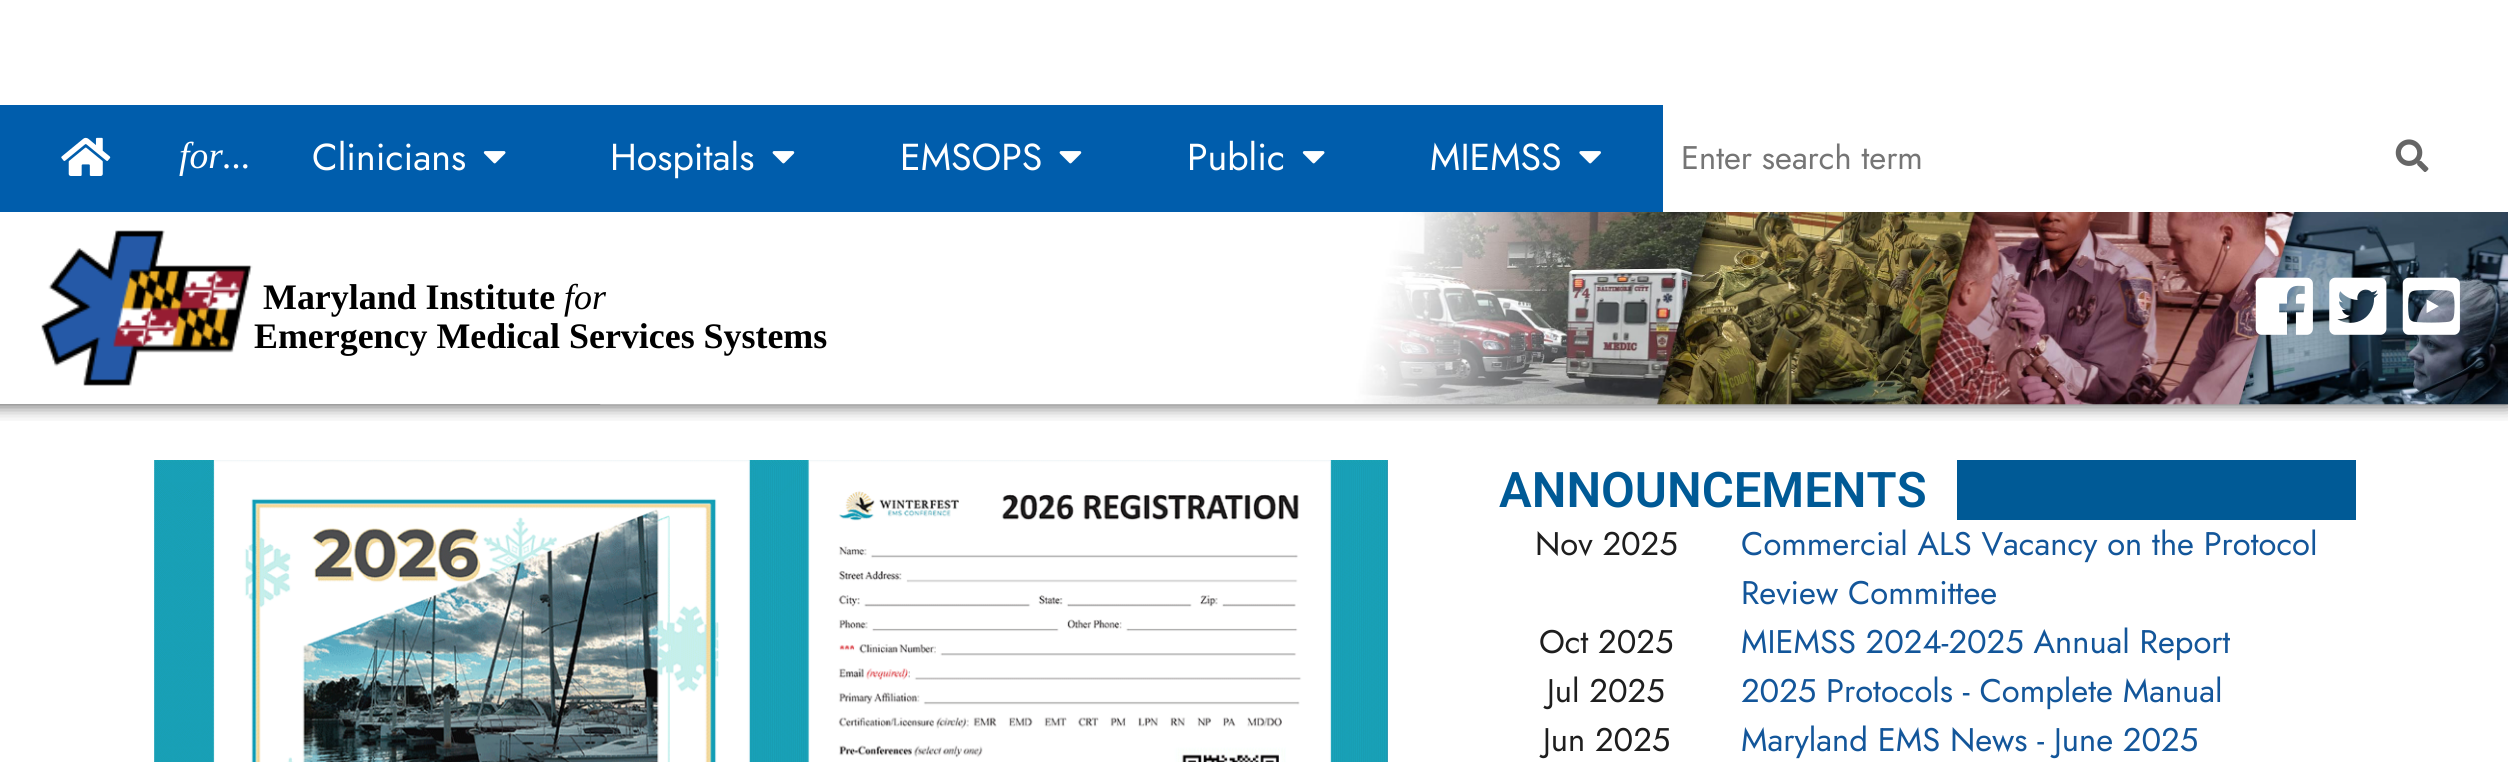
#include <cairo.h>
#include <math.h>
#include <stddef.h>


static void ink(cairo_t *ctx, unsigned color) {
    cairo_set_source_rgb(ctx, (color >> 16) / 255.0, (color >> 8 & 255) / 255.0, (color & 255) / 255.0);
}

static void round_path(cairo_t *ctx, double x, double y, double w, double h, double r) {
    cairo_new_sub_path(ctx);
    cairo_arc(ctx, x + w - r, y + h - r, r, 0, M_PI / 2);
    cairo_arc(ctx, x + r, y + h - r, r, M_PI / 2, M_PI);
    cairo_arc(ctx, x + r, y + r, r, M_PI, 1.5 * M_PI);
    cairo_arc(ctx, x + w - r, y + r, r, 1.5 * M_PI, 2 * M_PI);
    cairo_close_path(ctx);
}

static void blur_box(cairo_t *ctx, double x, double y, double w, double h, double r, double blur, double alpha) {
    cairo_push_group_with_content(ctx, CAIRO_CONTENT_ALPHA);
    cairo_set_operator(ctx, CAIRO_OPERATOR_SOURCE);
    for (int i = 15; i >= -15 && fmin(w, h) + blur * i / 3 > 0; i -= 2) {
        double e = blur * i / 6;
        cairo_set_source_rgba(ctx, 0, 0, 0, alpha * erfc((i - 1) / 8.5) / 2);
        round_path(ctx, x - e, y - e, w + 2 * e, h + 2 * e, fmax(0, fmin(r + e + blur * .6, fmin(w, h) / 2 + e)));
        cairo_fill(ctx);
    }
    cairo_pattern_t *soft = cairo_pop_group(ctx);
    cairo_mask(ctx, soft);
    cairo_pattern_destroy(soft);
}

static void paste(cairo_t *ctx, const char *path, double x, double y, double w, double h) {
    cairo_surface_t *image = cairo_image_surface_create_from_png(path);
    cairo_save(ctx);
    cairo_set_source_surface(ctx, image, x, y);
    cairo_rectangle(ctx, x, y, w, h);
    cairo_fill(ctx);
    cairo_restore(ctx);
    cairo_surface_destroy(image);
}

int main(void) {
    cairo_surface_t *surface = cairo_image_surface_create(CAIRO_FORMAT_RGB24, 2508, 762);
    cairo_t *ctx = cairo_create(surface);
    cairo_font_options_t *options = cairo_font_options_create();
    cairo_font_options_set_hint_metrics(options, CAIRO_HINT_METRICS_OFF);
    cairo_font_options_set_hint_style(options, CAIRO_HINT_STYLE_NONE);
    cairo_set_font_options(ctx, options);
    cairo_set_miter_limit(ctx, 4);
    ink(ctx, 0xFFFFFF);
    cairo_paint(ctx);
    cairo_save(ctx);
    cairo_rectangle(ctx, 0, 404, 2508, 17);
    cairo_clip(ctx);
    ink(ctx, 0x000000);
    blur_box(ctx, -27, 70, 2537, 334, 0, 9, 0.75);
    cairo_restore(ctx);
    ink(ctx, 0xFFFFFF);
    cairo_rectangle(ctx, 0, 50, 2508, 55);
    cairo_fill(ctx);
    paste(ctx, "media/1.png", 600, 212, 1908, 193);
    ink(ctx, 0x005DAC);
    cairo_rectangle(ctx, 0, 105, 1663, 107);
    cairo_fill(ctx);
    paste(ctx, "media/2.png", 61, 137, 50, 39);
    cairo_select_font_face(ctx, "Liberation Serif", CAIRO_FONT_SLANT_ITALIC, CAIRO_FONT_WEIGHT_NORMAL);
    cairo_set_font_size(ctx, 37.5);
    ink(ctx, 0xFFFFFF);
    cairo_move_to(ctx, 179, 168);
    cairo_show_text(ctx, "for...");
    cairo_select_font_face(ctx, "Jost", CAIRO_FONT_SLANT_NORMAL, CAIRO_FONT_WEIGHT_NORMAL);
    cairo_move_to(ctx, 312, 170);
    cairo_show_text(ctx, "Clinicians");
    paste(ctx, "media/3.png", 483, 151, 23, 13);
    cairo_move_to(ctx, 610, 170);
    cairo_show_text(ctx, "Hospitals");
    paste(ctx, "media/4.png", 772, 151, 23, 13);
    cairo_move_to(ctx, 900, 170);
    cairo_show_text(ctx, "EMSOPS");
    paste(ctx, "media/4.png", 1059, 151, 23, 13);
    cairo_move_to(ctx, 1187, 170);
    cairo_show_text(ctx, "Public");
    paste(ctx, "media/3.png", 1302, 151, 23, 13);
    cairo_move_to(ctx, 1430, 170);
    cairo_show_text(ctx, "MIEMSS");
    paste(ctx, "media/5.png", 1579, 151, 22, 13);
    cairo_set_font_size(ctx, 32.7);
    ink(ctx, 0x757575);
    cairo_move_to(ctx, 1681, 169);
    cairo_show_text(ctx, "Enter search term");
    paste(ctx, "media/6.png", 2395, 139, 34, 33);
    paste(ctx, "media/7.png", 41, 230, 212, 156);
    cairo_select_font_face(ctx, "Liberation Serif", CAIRO_FONT_SLANT_NORMAL, CAIRO_FONT_WEIGHT_BOLD);
    cairo_set_font_size(ctx, 35.9);
    ink(ctx, 0x000000);
    cairo_move_to(ctx, 263, 309);
    cairo_show_text(ctx, "Maryland Institute");
    cairo_select_font_face(ctx, "Liberation Serif", CAIRO_FONT_SLANT_ITALIC, CAIRO_FONT_WEIGHT_NORMAL);
    cairo_move_to(ctx, 564, 309);
    cairo_show_text(ctx, "for");
    cairo_select_font_face(ctx, "Liberation Serif", CAIRO_FONT_SLANT_NORMAL, CAIRO_FONT_WEIGHT_BOLD);
    cairo_move_to(ctx, 254, 348);
    cairo_show_text(ctx, "Emergency Medical Services Systems");
    paste(ctx, "media/8.png", 2255, 277, 58, 58);
    paste(ctx, "media/9.png", 2329, 277, 58, 58);
    paste(ctx, "media/10.png", 2402, 277, 58, 58);
    paste(ctx, "media/11.png", 154, 460, 1234, 302);
    cairo_set_source_rgba(ctx, 0.016, 0.282, 0.529, 0.25);
    cairo_rectangle(ctx, 1387, 460, 1, 302);
    cairo_fill(ctx);
    ink(ctx, 0x005A96);
    cairo_rectangle(ctx, 1957, 460, 399, 60);
    cairo_fill(ctx);
    cairo_select_font_face(ctx, "Roboto SemiBold", CAIRO_FONT_SLANT_NORMAL, CAIRO_FONT_WEIGHT_NORMAL);
    cairo_set_font_size(ctx, 49);
    cairo_move_to(ctx, 1499, 507);
    cairo_show_text(ctx, "ANNOUNCEMENTS");
    cairo_select_font_face(ctx, "Jost", CAIRO_FONT_SLANT_NORMAL, CAIRO_FONT_WEIGHT_NORMAL);
    cairo_set_font_size(ctx, 32.7);
    ink(ctx, 0x1E1E1E);
    cairo_move_to(ctx, 1535, 555);
    cairo_show_text(ctx, "Nov 2025");
    ink(ctx, 0x13569A);
    cairo_move_to(ctx, 1741, 555);
    cairo_show_text(ctx, "Commercial ALS Vacancy on the Protocol");
    cairo_move_to(ctx, 1741, 604);
    cairo_show_text(ctx, "Review Committee");
    ink(ctx, 0x1E1E1E);
    cairo_move_to(ctx, 1539, 653);
    cairo_show_text(ctx, "Oct 2025");
    ink(ctx, 0x13569A);
    cairo_move_to(ctx, 1741, 653);
    cairo_show_text(ctx, "MIEMSS 2024-2025 Annual Report");
    ink(ctx, 0x1E1E1E);
    cairo_move_to(ctx, 1547, 702);
    cairo_show_text(ctx, "Jul 2025");
    ink(ctx, 0x13569A);
    cairo_move_to(ctx, 1741, 702);
    cairo_show_text(ctx, "2025 Protocols - Complete Manual");
    ink(ctx, 0x1E1E1E);
    cairo_move_to(ctx, 1543, 751);
    cairo_show_text(ctx, "Jun 2025");
    ink(ctx, 0x13569A);
    cairo_move_to(ctx, 1741, 751);
    cairo_show_text(ctx, "Maryland EMS News - June 2025");
    cairo_surface_write_to_png(surface, "image.png");
    cairo_font_options_destroy(options);
    cairo_destroy(ctx);
    cairo_surface_destroy(surface);
    return 0;
}
